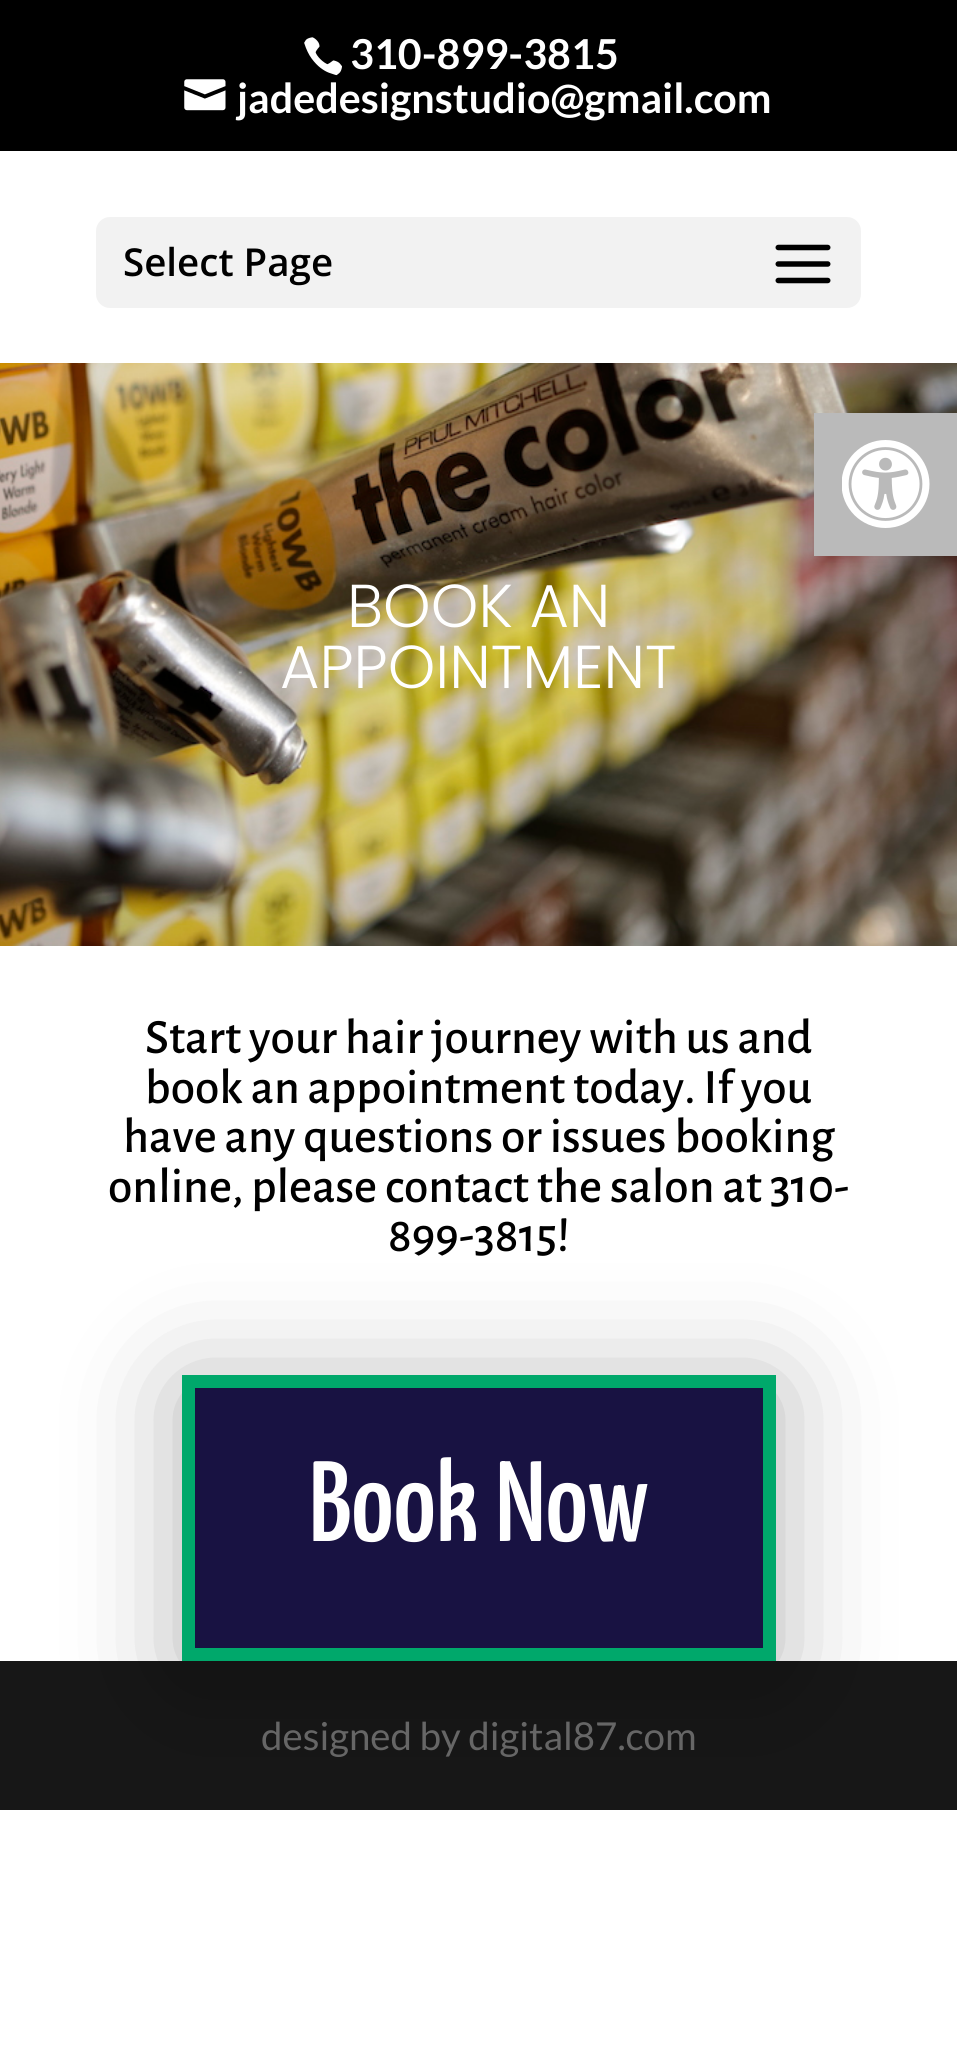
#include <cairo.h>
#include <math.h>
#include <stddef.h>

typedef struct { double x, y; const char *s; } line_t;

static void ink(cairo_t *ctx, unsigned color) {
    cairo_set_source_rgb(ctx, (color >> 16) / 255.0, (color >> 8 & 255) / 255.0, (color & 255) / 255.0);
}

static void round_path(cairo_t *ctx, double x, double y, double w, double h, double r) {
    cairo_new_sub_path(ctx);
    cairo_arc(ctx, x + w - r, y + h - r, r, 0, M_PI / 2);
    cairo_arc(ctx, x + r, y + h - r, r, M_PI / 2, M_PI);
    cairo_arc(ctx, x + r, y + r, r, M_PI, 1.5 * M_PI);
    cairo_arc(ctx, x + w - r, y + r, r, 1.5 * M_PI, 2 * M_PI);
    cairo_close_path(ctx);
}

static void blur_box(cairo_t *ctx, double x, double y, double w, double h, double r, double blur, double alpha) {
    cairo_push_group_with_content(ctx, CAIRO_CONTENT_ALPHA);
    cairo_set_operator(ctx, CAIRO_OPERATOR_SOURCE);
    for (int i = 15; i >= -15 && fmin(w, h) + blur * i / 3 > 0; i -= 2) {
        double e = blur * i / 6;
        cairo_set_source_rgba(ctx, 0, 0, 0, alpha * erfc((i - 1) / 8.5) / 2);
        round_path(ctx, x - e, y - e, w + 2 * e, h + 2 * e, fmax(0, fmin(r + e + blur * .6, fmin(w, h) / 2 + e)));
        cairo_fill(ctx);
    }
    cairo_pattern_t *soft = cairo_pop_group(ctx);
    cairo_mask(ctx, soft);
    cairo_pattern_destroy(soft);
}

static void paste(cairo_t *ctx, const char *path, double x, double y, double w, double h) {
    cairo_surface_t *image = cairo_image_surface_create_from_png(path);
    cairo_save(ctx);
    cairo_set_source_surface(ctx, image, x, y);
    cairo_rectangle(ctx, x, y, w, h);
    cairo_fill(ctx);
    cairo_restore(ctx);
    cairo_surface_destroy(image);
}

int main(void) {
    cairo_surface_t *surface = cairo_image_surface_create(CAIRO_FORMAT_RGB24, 957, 2047);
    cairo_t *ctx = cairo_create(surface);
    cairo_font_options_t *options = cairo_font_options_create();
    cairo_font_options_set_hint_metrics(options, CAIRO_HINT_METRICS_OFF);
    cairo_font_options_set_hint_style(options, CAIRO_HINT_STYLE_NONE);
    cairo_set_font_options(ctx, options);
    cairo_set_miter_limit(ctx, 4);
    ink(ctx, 0xFFFFFF);
    cairo_paint(ctx);
    ink(ctx, 0x000000);
    cairo_rectangle(ctx, 0, 0, 957, 151);
    cairo_fill(ctx);
    paste(ctx, "media/1.png", 304, 37, 38, 39);
    cairo_select_font_face(ctx, "Lato", CAIRO_FONT_SLANT_NORMAL, CAIRO_FONT_WEIGHT_BOLD);
    cairo_set_font_size(ctx, 41.25);
    ink(ctx, 0xFFFFFF);
    cairo_move_to(ctx, 350, 69);
    cairo_show_text(ctx, "310-899-3815");
    paste(ctx, "media/2.png", 184, 79, 42, 32);
    cairo_move_to(ctx, 237, 113);
    cairo_show_text(ctx, "jadedesignstudio@gmail.com");
    ink(ctx, 0xF2F2F2);
    round_path(ctx, 96, 217, 765, 91, 14);
    cairo_fill(ctx);
    cairo_select_font_face(ctx, "Open Sans SemiBold", CAIRO_FONT_SLANT_NORMAL, CAIRO_FONT_WEIGHT_NORMAL);
    cairo_set_font_size(ctx, 38.5);
    ink(ctx, 0x000000);
    cairo_move_to(ctx, 123, 276);
    cairo_show_text(ctx, "Select Page");
    paste(ctx, "media/3.png", 775, 244, 56, 40);
    paste(ctx, "media/4.png", 0, 363, 957, 583);
    cairo_select_font_face(ctx, "Poppins Light", CAIRO_FONT_SLANT_NORMAL, CAIRO_FONT_WEIGHT_NORMAL);
    cairo_set_font_size(ctx, 60.5);
    ink(ctx, 0xFFFFFF);
    cairo_move_to(ctx, 347, 627);
    cairo_show_text(ctx, "BOOK AN");
    cairo_move_to(ctx, 280, 688);
    cairo_show_text(ctx, "APPOINTMENT");
    cairo_select_font_face(ctx, "Alegreya Sans Medium", CAIRO_FONT_SLANT_NORMAL, CAIRO_FONT_WEIGHT_NORMAL);
    cairo_set_font_size(ctx, 49.5);
    ink(ctx, 0x000000);
    {
        static const line_t items[] = {
            {145, 1053, "Start your hair journey with us and"},
            {145, 1103, "book an appointment today. If you"},
            {123, 1152, "have any questions or issues booking"},
            {108, 1202, "online, please contact the salon at 310-"},
            {388, 1251, "899-3815!"},
        };
        for (size_t i = 0; i < sizeof items / sizeof *items; i++) {
            cairo_move_to(ctx, items[i].x, items[i].y);
            cairo_show_text(ctx, items[i].s);
        }
    }
    ink(ctx, 0x171717);
    cairo_rectangle(ctx, 0, 1661, 957, 149);
    cairo_fill(ctx);
    ink(ctx, 0x000000);
    blur_box(ctx, 182, 1386, 594, 286, 0, 57, 0.3);
    ink(ctx, 0x181242);
    cairo_rectangle(ctx, 188.5, 1381.5, 581, 273);
    cairo_fill_preserve(ctx);
    ink(ctx, 0x00A86B);
    cairo_set_line_width(ctx, 13);
    cairo_stroke(ctx);
    cairo_select_font_face(ctx, "Yanone Kaffeesatz Medium", CAIRO_FONT_SLANT_NORMAL, CAIRO_FONT_WEIGHT_NORMAL);
    cairo_set_font_size(ctx, 114);
    ink(ctx, 0xFFFFFF);
    cairo_move_to(ctx, 309, 1541);
    cairo_show_text(ctx, "Book Now");
    cairo_select_font_face(ctx, "Lato", CAIRO_FONT_SLANT_NORMAL, CAIRO_FONT_WEIGHT_NORMAL);
    cairo_set_font_size(ctx, 38.5);
    ink(ctx, 0x666666);
    cairo_move_to(ctx, 261, 1750);
    cairo_show_text(ctx, "designed by digital87.com");
    ink(ctx, 0x000000);
    blur_box(ctx, 814, 413, 143, 143, 0, 14, 0.1);
    ink(ctx, 0xBABABA);
    cairo_rectangle(ctx, 814, 413, 143, 143);
    cairo_fill(ctx);
    paste(ctx, "media/5.png", 842, 440, 88, 88);
    cairo_surface_write_to_png(surface, "image.png");
    cairo_font_options_destroy(options);
    cairo_destroy(ctx);
    cairo_surface_destroy(surface);
    return 0;
}
